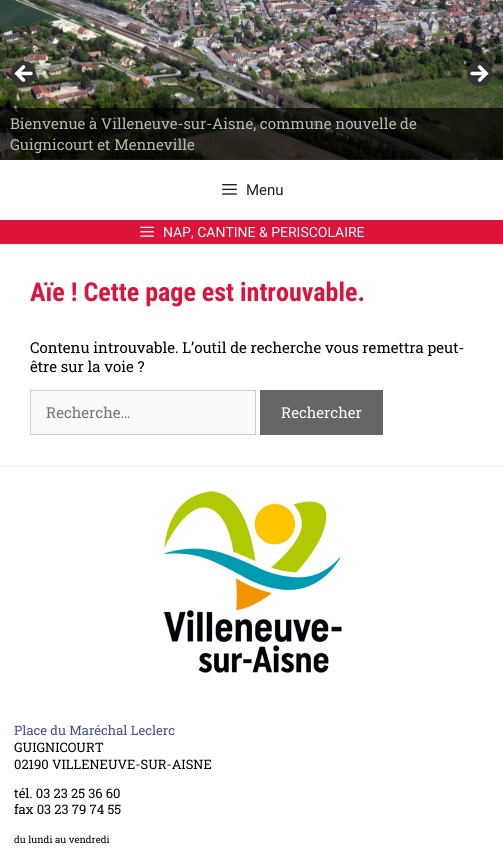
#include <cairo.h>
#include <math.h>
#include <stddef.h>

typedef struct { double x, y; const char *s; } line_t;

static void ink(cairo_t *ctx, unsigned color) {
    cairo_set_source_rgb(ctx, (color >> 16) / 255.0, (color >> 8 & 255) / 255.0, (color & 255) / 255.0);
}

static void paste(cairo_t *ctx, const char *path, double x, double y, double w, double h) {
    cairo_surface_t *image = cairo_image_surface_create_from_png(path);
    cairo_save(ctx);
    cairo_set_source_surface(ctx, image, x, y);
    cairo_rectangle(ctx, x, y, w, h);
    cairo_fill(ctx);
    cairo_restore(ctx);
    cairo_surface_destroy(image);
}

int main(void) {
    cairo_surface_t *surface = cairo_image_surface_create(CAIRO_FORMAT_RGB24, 503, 848);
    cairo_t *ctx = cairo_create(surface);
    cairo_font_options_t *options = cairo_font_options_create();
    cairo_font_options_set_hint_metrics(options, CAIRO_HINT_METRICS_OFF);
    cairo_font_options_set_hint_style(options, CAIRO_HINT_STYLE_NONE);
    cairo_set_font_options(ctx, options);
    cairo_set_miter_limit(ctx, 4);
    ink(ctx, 0xF9F9F9);
    cairo_paint(ctx);
    paste(ctx, "media/3.png", 0, 0, 503, 160);
    paste(ctx, "media/1.png", 11, 61, 25, 25);
    paste(ctx, "media/2.png", 467, 61, 25, 25);
    cairo_set_source_rgba(ctx, 0, 0, 0, 0.7);
    cairo_rectangle(ctx, 0, 108, 503, 52);
    cairo_fill(ctx);
    cairo_select_font_face(ctx, "Roboto Slab", CAIRO_FONT_SLANT_NORMAL, CAIRO_FONT_WEIGHT_NORMAL);
    cairo_set_font_size(ctx, 15);
    ink(ctx, 0xB7B8B6);
    cairo_move_to(ctx, 10, 129);
    cairo_show_text(ctx, "Bienvenue à Villeneuve-sur-Aisne, commune nouvelle de");
    cairo_move_to(ctx, 10, 150);
    cairo_show_text(ctx, "Guignicourt et Menneville");
    ink(ctx, 0xFFFFFF);
    cairo_rectangle(ctx, 0, 160, 503, 60);
    cairo_fill(ctx);
    paste(ctx, "media/4.png", 222, 184, 15, 11);
    cairo_select_font_face(ctx, "Roboto", CAIRO_FONT_SLANT_NORMAL, CAIRO_FONT_WEIGHT_NORMAL);
    ink(ctx, 0x222222);
    cairo_move_to(ctx, 246, 195);
    cairo_show_text(ctx, "Menu");
    ink(ctx, 0xDC143C);
    cairo_rectangle(ctx, 0, 220, 503, 24);
    cairo_fill(ctx);
    paste(ctx, "media/5.png", 140, 226, 14, 11);
    cairo_set_font_size(ctx, 14);
    ink(ctx, 0xFFFFFF);
    cairo_move_to(ctx, 163, 237);
    cairo_show_text(ctx, "NAP, CANTINE & PERISCOLAIRE");
    cairo_rectangle(ctx, 0, 247, 503, 218);
    cairo_fill(ctx);
    cairo_select_font_face(ctx, "Roboto Condensed", CAIRO_FONT_SLANT_NORMAL, CAIRO_FONT_WEIGHT_BOLD);
    cairo_set_font_size(ctx, 26);
    ink(ctx, 0xDC143C);
    cairo_move_to(ctx, 30, 301);
    cairo_show_text(ctx, "Aïe ! Cette page est introuvable.");
    cairo_select_font_face(ctx, "Roboto Slab", CAIRO_FONT_SLANT_NORMAL, CAIRO_FONT_WEIGHT_NORMAL);
    cairo_set_font_size(ctx, 15);
    ink(ctx, 0x020202);
    cairo_move_to(ctx, 30, 353);
    cairo_show_text(ctx, "Contenu introuvable. L’outil de recherche vous remettra peut-");
    cairo_move_to(ctx, 30, 372);
    cairo_show_text(ctx, "être sur la voie ?");
    ink(ctx, 0xFAFAFA);
    cairo_rectangle(ctx, 30.5, 390.5, 225, 44);
    cairo_fill_preserve(ctx);
    ink(ctx, 0xCCCCCC);
    cairo_set_line_width(ctx, 1);
    cairo_stroke(ctx);
    ink(ctx, 0x757575);
    cairo_move_to(ctx, 46, 418);
    cairo_show_text(ctx, "Recherche…");
    ink(ctx, 0x666666);
    cairo_rectangle(ctx, 260, 390, 123, 45);
    cairo_fill(ctx);
    ink(ctx, 0xFFFFFF);
    cairo_move_to(ctx, 281, 418);
    cairo_show_text(ctx, "Rechercher");
    cairo_rectangle(ctx, 0, 468, 503, 380);
    cairo_fill(ctx);
    paste(ctx, "media/6.png", 163, 491, 179, 182);
    cairo_set_font_size(ctx, 13);
    ink(ctx, 0x414E9B);
    cairo_move_to(ctx, 14, 735);
    cairo_show_text(ctx, "Place du Maréchal Leclerc");
    ink(ctx, 0x020202);
    {
        static const line_t items[] = {
            {14, 752, "GUIGNICOURT"},
            {14, 769, "02190 VILLENEUVE-SUR-AISNE"},
            {14, 798, "tél. 03 23 25 36 60"},
            {14, 814, "fax 03 23 79 74 55"},
        };
        for (size_t i = 0; i < sizeof items / sizeof *items; i++) {
            cairo_move_to(ctx, items[i].x, items[i].y);
            cairo_show_text(ctx, items[i].s);
        }
    }
    cairo_set_font_size(ctx, 9.75);
    cairo_move_to(ctx, 14, 843);
    cairo_show_text(ctx, "du lundi au vendredi");
    cairo_surface_write_to_png(surface, "image.png");
    cairo_font_options_destroy(options);
    cairo_destroy(ctx);
    cairo_surface_destroy(surface);
    return 0;
}
